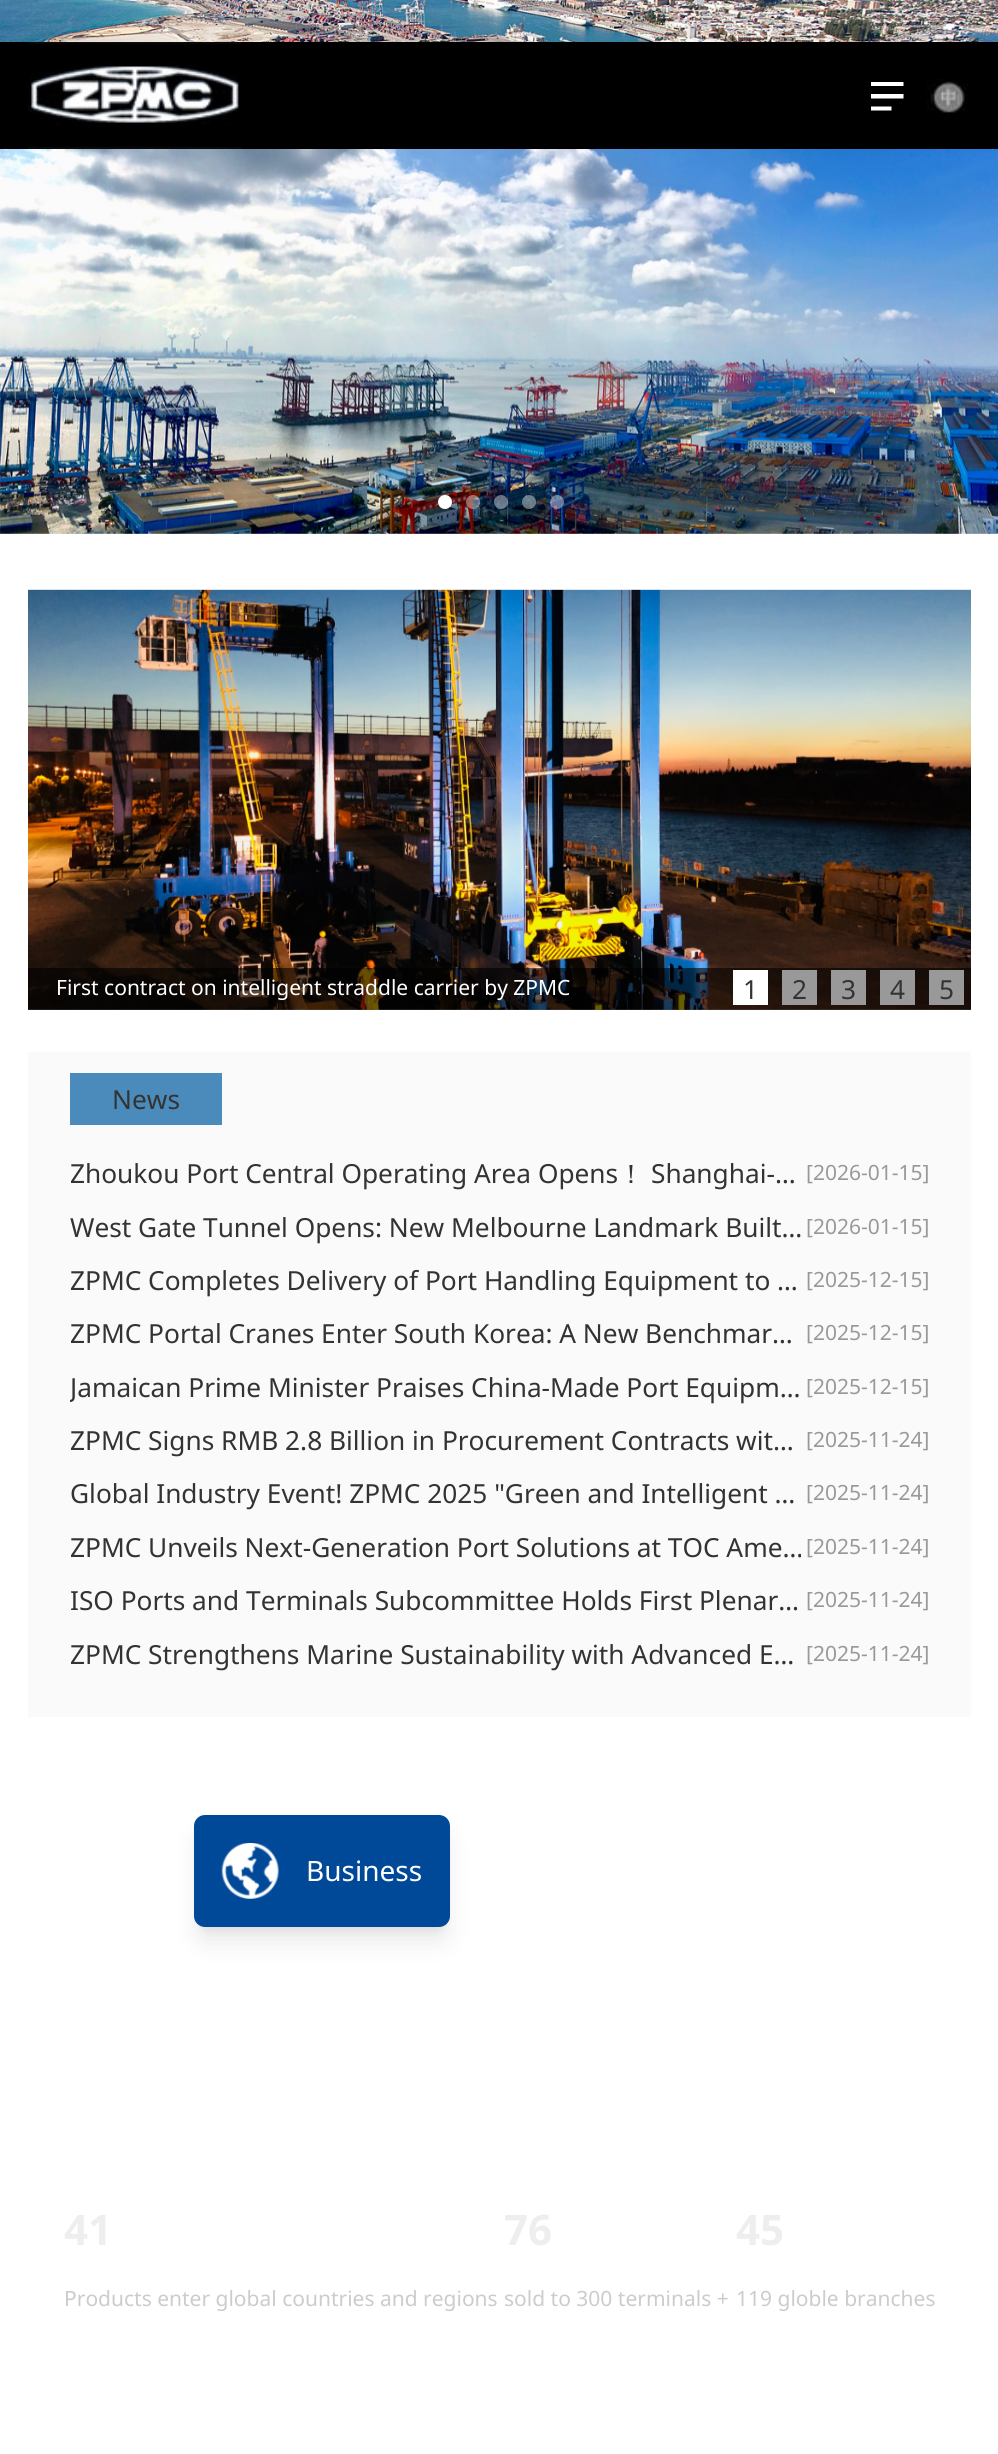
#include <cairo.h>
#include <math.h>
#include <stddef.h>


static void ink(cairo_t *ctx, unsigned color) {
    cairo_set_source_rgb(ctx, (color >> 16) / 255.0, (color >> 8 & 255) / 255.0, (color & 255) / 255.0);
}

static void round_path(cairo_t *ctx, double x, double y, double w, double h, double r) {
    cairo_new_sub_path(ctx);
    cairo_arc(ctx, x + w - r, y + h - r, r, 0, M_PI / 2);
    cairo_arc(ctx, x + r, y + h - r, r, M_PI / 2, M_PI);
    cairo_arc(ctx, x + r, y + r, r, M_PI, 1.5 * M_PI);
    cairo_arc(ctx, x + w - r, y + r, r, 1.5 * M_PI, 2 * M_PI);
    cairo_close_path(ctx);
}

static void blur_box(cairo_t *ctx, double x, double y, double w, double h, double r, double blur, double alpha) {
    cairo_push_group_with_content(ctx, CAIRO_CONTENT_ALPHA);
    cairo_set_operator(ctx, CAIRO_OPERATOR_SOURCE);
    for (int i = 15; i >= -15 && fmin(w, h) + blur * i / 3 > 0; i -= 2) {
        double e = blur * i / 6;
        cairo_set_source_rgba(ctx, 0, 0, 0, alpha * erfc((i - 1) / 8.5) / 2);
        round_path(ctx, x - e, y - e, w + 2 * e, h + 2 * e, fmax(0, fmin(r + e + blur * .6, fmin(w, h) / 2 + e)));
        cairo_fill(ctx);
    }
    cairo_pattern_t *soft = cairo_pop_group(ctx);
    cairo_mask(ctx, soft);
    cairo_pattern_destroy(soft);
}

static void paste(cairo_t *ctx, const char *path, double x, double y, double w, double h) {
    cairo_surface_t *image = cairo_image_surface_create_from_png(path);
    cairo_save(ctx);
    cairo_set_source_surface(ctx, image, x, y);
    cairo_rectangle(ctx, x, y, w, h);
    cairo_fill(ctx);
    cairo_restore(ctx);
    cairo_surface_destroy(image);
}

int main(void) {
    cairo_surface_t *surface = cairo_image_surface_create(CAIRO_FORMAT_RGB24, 998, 2454);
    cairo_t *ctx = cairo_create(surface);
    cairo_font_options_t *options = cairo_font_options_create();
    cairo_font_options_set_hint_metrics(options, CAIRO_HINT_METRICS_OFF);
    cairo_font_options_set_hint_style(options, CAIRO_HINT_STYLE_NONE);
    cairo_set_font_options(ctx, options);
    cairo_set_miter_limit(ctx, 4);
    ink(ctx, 0xFFFFFF);
    cairo_paint(ctx);
    paste(ctx, "media/1.png", 0, 0, 998, 42);
    ink(ctx, 0x000000);
    cairo_rectangle(ctx, 0, 42, 998, 107);
    cairo_fill(ctx);
    paste(ctx, "media/2.png", 28, 42, 214, 107);
    ink(ctx, 0xFFFFFF);
    cairo_new_path(ctx);
    cairo_move_to(ctx, 871, 82);
    cairo_line_to(ctx, 903.5, 82);
    cairo_line_to(ctx, 903.5, 86);
    cairo_line_to(ctx, 871, 86);
    cairo_close_path(ctx);
    cairo_move_to(ctx, 871, 106.5);
    cairo_line_to(ctx, 891.5, 106.5);
    cairo_line_to(ctx, 891.5, 110.5);
    cairo_line_to(ctx, 871, 110.5);
    cairo_close_path(ctx);
    cairo_move_to(ctx, 871, 94);
    cairo_line_to(ctx, 903.5, 94);
    cairo_line_to(ctx, 903.5, 98.5);
    cairo_line_to(ctx, 871, 98.5);
    cairo_close_path(ctx);
    cairo_fill(ctx);
    paste(ctx, "media/3.png", 926, 79, 42, 34);
    paste(ctx, "media/4.png", 0, 149, 998, 385);
    cairo_arc(ctx, 445, 502, 7, 0, 2 * M_PI);
    cairo_fill(ctx);
    cairo_set_source_rgba(ctx, 1, 1, 1, 0.4);
    cairo_arc(ctx, 473, 502, 7, 0, 2 * M_PI);
    cairo_fill(ctx);
    cairo_arc(ctx, 501, 502, 7, 0, 2 * M_PI);
    cairo_fill(ctx);
    cairo_arc(ctx, 529, 502, 7, 0, 2 * M_PI);
    cairo_fill(ctx);
    cairo_arc(ctx, 557, 502, 7, 0, 2 * M_PI);
    cairo_fill(ctx);
    paste(ctx, "media/5.png", 28, 589, 943, 421);
    cairo_set_source_rgba(ctx, 0, 0, 0, 0.6);
    cairo_rectangle(ctx, 28, 968, 943, 42);
    cairo_fill(ctx);
    cairo_select_font_face(ctx, "Noto Sans", CAIRO_FONT_SLANT_NORMAL, CAIRO_FONT_WEIGHT_NORMAL);
    cairo_set_font_size(ctx, 21);
    ink(ctx, 0xFFFFFF);
    cairo_move_to(ctx, 56, 995);
    cairo_show_text(ctx, "First contract on intelligent straddle carrier by ZPMC");
    cairo_rectangle(ctx, 733, 970, 35, 35);
    cairo_fill(ctx);
    cairo_set_font_size(ctx, 26.25);
    ink(ctx, 0x333333);
    cairo_move_to(ctx, 743, 999);
    cairo_show_text(ctx, "1");
    ink(ctx, 0x999999);
    cairo_rectangle(ctx, 782, 970, 35, 35);
    cairo_fill(ctx);
    ink(ctx, 0x333333);
    cairo_move_to(ctx, 792, 999);
    cairo_show_text(ctx, "2");
    ink(ctx, 0x999999);
    cairo_rectangle(ctx, 831, 970, 35, 35);
    cairo_fill(ctx);
    ink(ctx, 0x333333);
    cairo_move_to(ctx, 841, 999);
    cairo_show_text(ctx, "3");
    ink(ctx, 0x999999);
    cairo_rectangle(ctx, 880, 970, 35, 35);
    cairo_fill(ctx);
    ink(ctx, 0x333333);
    cairo_move_to(ctx, 890, 999);
    cairo_show_text(ctx, "4");
    ink(ctx, 0x999999);
    cairo_rectangle(ctx, 929, 970, 35, 35);
    cairo_fill(ctx);
    ink(ctx, 0x333333);
    cairo_move_to(ctx, 939, 999);
    cairo_show_text(ctx, "5");
    ink(ctx, 0xFAFAFA);
    cairo_rectangle(ctx, 28, 1052, 943, 665);
    cairo_fill(ctx);
    ink(ctx, 0x4B8BBB);
    cairo_rectangle(ctx, 70, 1073, 152, 52);
    cairo_fill(ctx);
    ink(ctx, 0x333333);
    cairo_move_to(ctx, 112, 1109);
    cairo_show_text(ctx, "News");
    cairo_move_to(ctx, 70, 1183);
    cairo_show_text(ctx, "Zhoukou Port Central Operating Area Opens");
    cairo_select_font_face(ctx, "WenQuanYi Zen Hei Medium", CAIRO_FONT_SLANT_NORMAL, CAIRO_FONT_WEIGHT_NORMAL);
    cairo_move_to(ctx, 618, 1183);
    cairo_show_text(ctx, "！");
    cairo_select_font_face(ctx, "Noto Sans", CAIRO_FONT_SLANT_NORMAL, CAIRO_FONT_WEIGHT_NORMAL);
    cairo_move_to(ctx, 651, 1183);
    cairo_show_text(ctx, "Shanghai-…");
    cairo_set_font_size(ctx, 21);
    ink(ctx, 0x999999);
    cairo_move_to(ctx, 806, 1180);
    cairo_show_text(ctx, "[2026-01-15]");
    cairo_set_font_size(ctx, 26.25);
    ink(ctx, 0x333333);
    cairo_move_to(ctx, 70, 1237);
    cairo_show_text(ctx, "West Gate Tunnel Opens: New Melbourne Landmark Built…");
    cairo_set_font_size(ctx, 21);
    ink(ctx, 0x999999);
    cairo_move_to(ctx, 806, 1234);
    cairo_show_text(ctx, "[2026-01-15]");
    cairo_set_font_size(ctx, 26.25);
    ink(ctx, 0x333333);
    cairo_move_to(ctx, 70, 1290);
    cairo_show_text(ctx, "ZPMC Completes Delivery of Port Handling Equipment to …");
    cairo_set_font_size(ctx, 21);
    ink(ctx, 0x999999);
    cairo_move_to(ctx, 806, 1287);
    cairo_show_text(ctx, "[2025-12-15]");
    cairo_set_font_size(ctx, 26.25);
    ink(ctx, 0x333333);
    cairo_move_to(ctx, 70, 1343);
    cairo_show_text(ctx, "ZPMC Portal Cranes Enter South Korea: A New Benchmar…");
    cairo_set_font_size(ctx, 21);
    ink(ctx, 0x999999);
    cairo_move_to(ctx, 806, 1340);
    cairo_show_text(ctx, "[2025-12-15]");
    cairo_save(ctx);
    cairo_rectangle(ctx, 70, 1367, 735, 40);
    cairo_clip(ctx);
    cairo_set_font_size(ctx, 26.25);
    ink(ctx, 0x333333);
    cairo_move_to(ctx, 70, 1397);
    cairo_show_text(ctx, "Jamaican Prime Minister Praises China-Made Port Equipm…");
    cairo_restore(ctx);
    cairo_move_to(ctx, 806, 1394);
    cairo_show_text(ctx, "[2025-12-15]");
    cairo_set_font_size(ctx, 26.25);
    ink(ctx, 0x333333);
    cairo_move_to(ctx, 70, 1450);
    cairo_show_text(ctx, "ZPMC Signs RMB 2.8 Billion in Procurement Contracts wit…");
    cairo_set_font_size(ctx, 21);
    ink(ctx, 0x999999);
    cairo_move_to(ctx, 806, 1447);
    cairo_show_text(ctx, "[2025-11-24]");
    cairo_set_font_size(ctx, 26.25);
    ink(ctx, 0x333333);
    cairo_move_to(ctx, 70, 1503);
    cairo_show_text(ctx, "Global Industry Event! ZPMC 2025 \"Green and Intelligent …");
    cairo_set_font_size(ctx, 21);
    ink(ctx, 0x999999);
    cairo_move_to(ctx, 806, 1500);
    cairo_show_text(ctx, "[2025-11-24]");
    cairo_set_font_size(ctx, 26.25);
    ink(ctx, 0x333333);
    cairo_move_to(ctx, 70, 1557);
    cairo_show_text(ctx, "ZPMC Unveils Next-Generation Port Solutions at TOC Ame…");
    cairo_set_font_size(ctx, 21);
    ink(ctx, 0x999999);
    cairo_move_to(ctx, 806, 1554);
    cairo_show_text(ctx, "[2025-11-24]");
    cairo_set_font_size(ctx, 26.25);
    ink(ctx, 0x333333);
    cairo_move_to(ctx, 70, 1610);
    cairo_show_text(ctx, "ISO Ports and Terminals Subcommittee Holds First Plenar…");
    cairo_set_font_size(ctx, 21);
    ink(ctx, 0x999999);
    cairo_move_to(ctx, 806, 1607);
    cairo_show_text(ctx, "[2025-11-24]");
    cairo_set_font_size(ctx, 26.25);
    ink(ctx, 0x333333);
    cairo_move_to(ctx, 70, 1664);
    cairo_show_text(ctx, "ZPMC Strengthens Marine Sustainability with Advanced E…");
    cairo_set_font_size(ctx, 21);
    ink(ctx, 0x999999);
    cairo_move_to(ctx, 806, 1661);
    cairo_show_text(ctx, "[2025-11-24]");
    ink(ctx, 0x000000);
    blur_box(ctx, 201, 1829, 242, 98, 4, 5, 0.1);
    blur_box(ctx, 200, 1838, 245, 101, 5, 13, 0.1);
    ink(ctx, 0x004898);
    round_path(ctx, 194, 1815, 256, 112, 11);
    cairo_fill(ctx);
    paste(ctx, "media/6.png", 221, 1843, 58, 56);
    cairo_set_font_size(ctx, 28);
    ink(ctx, 0xFFFFFF);
    cairo_move_to(ctx, 306, 1881);
    cairo_show_text(ctx, "Business");
    cairo_select_font_face(ctx, "Noto Sans", CAIRO_FONT_SLANT_NORMAL, CAIRO_FONT_WEIGHT_BOLD);
    cairo_set_font_size(ctx, 42);
    ink(ctx, 0xEEEEEE);
    cairo_move_to(ctx, 64, 2245);
    cairo_show_text(ctx, "41");
    cairo_select_font_face(ctx, "Noto Sans", CAIRO_FONT_SLANT_NORMAL, CAIRO_FONT_WEIGHT_NORMAL);
    cairo_set_font_size(ctx, 21);
    ink(ctx, 0xCCCCCC);
    cairo_move_to(ctx, 64, 2306);
    cairo_show_text(ctx, "Products enter global countries and regions");
    cairo_select_font_face(ctx, "Noto Sans", CAIRO_FONT_SLANT_NORMAL, CAIRO_FONT_WEIGHT_BOLD);
    cairo_set_font_size(ctx, 42);
    ink(ctx, 0xEEEEEE);
    cairo_move_to(ctx, 504, 2245);
    cairo_show_text(ctx, "76");
    cairo_select_font_face(ctx, "Noto Sans", CAIRO_FONT_SLANT_NORMAL, CAIRO_FONT_WEIGHT_NORMAL);
    cairo_set_font_size(ctx, 21);
    ink(ctx, 0xCCCCCC);
    cairo_move_to(ctx, 504, 2306);
    cairo_show_text(ctx, "sold to 300 terminals +");
    cairo_select_font_face(ctx, "Noto Sans", CAIRO_FONT_SLANT_NORMAL, CAIRO_FONT_WEIGHT_BOLD);
    cairo_set_font_size(ctx, 42);
    ink(ctx, 0xEEEEEE);
    cairo_move_to(ctx, 736, 2245);
    cairo_show_text(ctx, "45");
    cairo_select_font_face(ctx, "Noto Sans", CAIRO_FONT_SLANT_NORMAL, CAIRO_FONT_WEIGHT_NORMAL);
    cairo_set_font_size(ctx, 21);
    ink(ctx, 0xCCCCCC);
    cairo_move_to(ctx, 736, 2306);
    cairo_show_text(ctx, "119 globle branches");
    cairo_surface_write_to_png(surface, "image.png");
    cairo_font_options_destroy(options);
    cairo_destroy(ctx);
    cairo_surface_destroy(surface);
    return 0;
}
